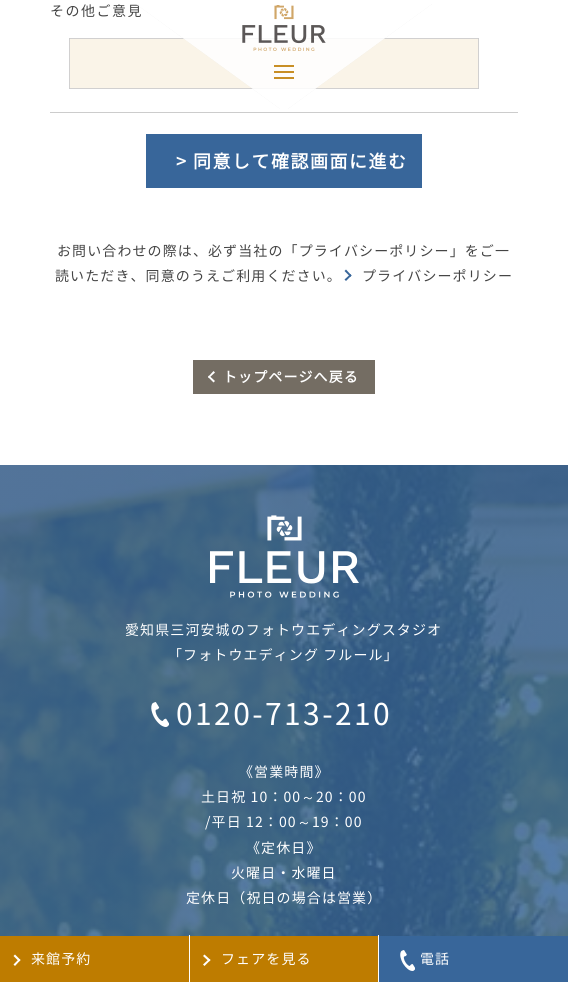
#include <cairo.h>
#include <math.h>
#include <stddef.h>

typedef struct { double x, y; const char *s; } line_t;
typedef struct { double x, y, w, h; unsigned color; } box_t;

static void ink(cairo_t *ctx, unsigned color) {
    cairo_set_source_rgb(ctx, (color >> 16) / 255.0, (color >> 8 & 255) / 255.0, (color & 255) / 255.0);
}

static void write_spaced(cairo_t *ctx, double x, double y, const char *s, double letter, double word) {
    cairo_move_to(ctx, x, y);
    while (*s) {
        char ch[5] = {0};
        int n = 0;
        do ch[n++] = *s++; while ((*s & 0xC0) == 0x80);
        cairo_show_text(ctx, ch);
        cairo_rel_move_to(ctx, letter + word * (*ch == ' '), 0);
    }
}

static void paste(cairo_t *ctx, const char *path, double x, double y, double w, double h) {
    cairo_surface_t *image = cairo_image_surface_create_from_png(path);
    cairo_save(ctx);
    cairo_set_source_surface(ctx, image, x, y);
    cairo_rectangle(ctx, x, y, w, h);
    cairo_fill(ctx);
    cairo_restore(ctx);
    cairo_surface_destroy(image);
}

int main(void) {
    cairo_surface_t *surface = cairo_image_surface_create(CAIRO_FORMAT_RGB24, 568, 982);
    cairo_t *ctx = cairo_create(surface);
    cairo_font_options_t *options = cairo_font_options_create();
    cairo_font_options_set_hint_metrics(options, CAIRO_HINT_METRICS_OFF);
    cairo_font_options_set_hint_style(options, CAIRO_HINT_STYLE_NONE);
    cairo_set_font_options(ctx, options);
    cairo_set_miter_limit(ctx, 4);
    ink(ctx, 0xFFFFFF);
    cairo_paint(ctx);
    ink(ctx, 0xCCCCCC);
    cairo_rectangle(ctx, 50, 112, 468, 1);
    cairo_fill(ctx);
    cairo_select_font_face(ctx, "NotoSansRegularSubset", CAIRO_FONT_SLANT_NORMAL, CAIRO_FONT_WEIGHT_NORMAL);
    cairo_set_font_size(ctx, 14);
    ink(ctx, 0x444444);
    write_spaced(ctx, 50, 16, "その他ご意見", 1.5, 0);
    ink(ctx, 0xFAF4E8);
    cairo_rectangle(ctx, 69.45, 38.45, 409.1, 50.1);
    cairo_fill_preserve(ctx);
    ink(ctx, 0xCCCCCC);
    cairo_set_line_width(ctx, 0.9);
    cairo_stroke(ctx);
    ink(ctx, 0x38669A);
    cairo_rectangle(ctx, 146, 134, 276, 54);
    cairo_fill(ctx);
    cairo_select_font_face(ctx, "NotoSansRegularSubset", CAIRO_FONT_SLANT_NORMAL, CAIRO_FONT_WEIGHT_BOLD);
    cairo_set_font_size(ctx, 18);
    ink(ctx, 0xFFFFFF);
    write_spaced(ctx, 176, 168, "> 同意して確認画面に進む", 1.5, 0);
    cairo_select_font_face(ctx, "NotoSansRegularSubset", CAIRO_FONT_SLANT_NORMAL, CAIRO_FONT_WEIGHT_NORMAL);
    cairo_set_font_size(ctx, 14);
    ink(ctx, 0x444444);
    write_spaced(ctx, 57, 256, "お問い合わせの際は、必ず当社の「プライバシーポリシー」をご一", 1.1, 0);
    write_spaced(ctx, 55, 281, "読いただき、同意のうえご利用ください。", 1.1, 0);
    ink(ctx, 0x38669A);
    cairo_new_path(ctx);
    cairo_move_to(ctx, 344.5, 271);
    cairo_line_to(ctx, 346, 269.5);
    cairo_line_to(ctx, 351.5, 275.5);
    cairo_line_to(ctx, 350.5, 277);
    cairo_close_path(ctx);
    cairo_fill(ctx);
    cairo_new_path(ctx);
    cairo_move_to(ctx, 344.5, 279.5);
    cairo_line_to(ctx, 350.5, 274);
    cairo_line_to(ctx, 351.5, 275.5);
    cairo_line_to(ctx, 346, 281);
    cairo_close_path(ctx);
    cairo_fill(ctx);
    ink(ctx, 0x444444);
    write_spaced(ctx, 362, 281, "プライバシーポリシー", 1.1, 0);
    ink(ctx, 0x746D63);
    cairo_rectangle(ctx, 193, 360, 182, 34);
    cairo_fill(ctx);
    ink(ctx, 0xFFFFFF);
    cairo_new_path(ctx);
    cairo_move_to(ctx, 215, 381);
    cairo_line_to(ctx, 213.5, 382.5);
    cairo_line_to(ctx, 208, 377);
    cairo_line_to(ctx, 209, 375.5);
    cairo_close_path(ctx);
    cairo_fill(ctx);
    cairo_new_path(ctx);
    cairo_move_to(ctx, 215, 372.5);
    cairo_line_to(ctx, 209, 378);
    cairo_line_to(ctx, 208, 377);
    cairo_line_to(ctx, 213.5, 371);
    cairo_close_path(ctx);
    cairo_fill(ctx);
    cairo_select_font_face(ctx, "NotoSansRegularSubset", CAIRO_FONT_SLANT_NORMAL, CAIRO_FONT_WEIGHT_BOLD);
    write_spaced(ctx, 223, 382, "トップページへ戻る", 1.1, 0);
    paste(ctx, "media/1.png", 0, 465, 568, 471);
    paste(ctx, "media/2.png", 210, 515, 149, 83);
    cairo_select_font_face(ctx, "NotoSansRegularSubset", CAIRO_FONT_SLANT_NORMAL, CAIRO_FONT_WEIGHT_NORMAL);
    write_spaced(ctx, 125, 635, "愛知県三河安城のフォトウエディングスタジオ", 1.1, 0);
    write_spaced(ctx, 168, 660, "「フォトウエディング フルール」", 1.1, 0);
    paste(ctx, "media/3.png", 151, 702, 18, 25);
    cairo_set_font_size(ctx, 30);
    write_spaced(ctx, 176, 725, "0120-713-210", 2.4, 0);
    cairo_set_font_size(ctx, 14);
    write_spaced(ctx, 239, 777, "《営業時間》", 1.1, 0);
    write_spaced(ctx, 201, 802, "土日祝 10：00", 1.1, 0);
    cairo_select_font_face(ctx, "WenQuanYi Zen Hei Medium", CAIRO_FONT_SLANT_NORMAL, CAIRO_FONT_WEIGHT_NORMAL);
    write_spaced(ctx, 301, 802, "～", 1.1, 0);
    cairo_select_font_face(ctx, "NotoSansRegularSubset", CAIRO_FONT_SLANT_NORMAL, CAIRO_FONT_WEIGHT_NORMAL);
    write_spaced(ctx, 316, 802, "20：00", 1.1, 0);
    write_spaced(ctx, 205, 827, "/平日 12：00", 1.1, 0);
    cairo_select_font_face(ctx, "WenQuanYi Zen Hei Medium", CAIRO_FONT_SLANT_NORMAL, CAIRO_FONT_WEIGHT_NORMAL);
    write_spaced(ctx, 297, 827, "～", 1.1, 0);
    cairo_select_font_face(ctx, "NotoSansRegularSubset", CAIRO_FONT_SLANT_NORMAL, CAIRO_FONT_WEIGHT_NORMAL);
    {
        static const line_t items[] = {
            {312, 827, "19：00"},
            {246, 853, "《定休日》"},
            {231, 878, "火曜日・水曜日"},
            {186, 903, "定休日（祝日の場合は営業）"},
        };
        for (size_t i = 0; i < sizeof items / sizeof *items; i++) {
            write_spaced(ctx, items[i].x, items[i].y, items[i].s, 1.1, 0);
        }
    }
    paste(ctx, "media/4.png", 136, 4, 296, 105);
    paste(ctx, "media/5.png", 242, 5, 84, 46);
    {
        static const box_t items[] = {
            {274, 71, 20, 2, 0xC88F26},
            {274, 65, 20, 2, 0xC88F26},
            {274, 77, 20, 2, 0xC88F26},
            {0, 936, 189, 46, 0xBE7C00},
        };
        for (size_t i = 0; i < sizeof items / sizeof *items; i++) {
            ink(ctx, items[i].color);
            cairo_rectangle(ctx, items[i].x, items[i].y, items[i].w, items[i].h);
            cairo_fill(ctx);
        }
    }
    ink(ctx, 0xFFFFFF);
    cairo_new_path(ctx);
    cairo_move_to(ctx, 13.5, 956);
    cairo_line_to(ctx, 15, 954.5);
    cairo_line_to(ctx, 20.5, 960);
    cairo_line_to(ctx, 19, 961.5);
    cairo_close_path(ctx);
    cairo_fill(ctx);
    cairo_new_path(ctx);
    cairo_move_to(ctx, 13.5, 964.5);
    cairo_line_to(ctx, 19, 959);
    cairo_line_to(ctx, 20.5, 960);
    cairo_line_to(ctx, 15, 966);
    cairo_close_path(ctx);
    cairo_fill(ctx);
    write_spaced(ctx, 31, 964, "来館予約", 1.1, 0);
    cairo_rectangle(ctx, 189, 935, 1, 1);
    cairo_fill(ctx);
    ink(ctx, 0xBE7C00);
    cairo_rectangle(ctx, 190, 936, 188, 46);
    cairo_fill(ctx);
    ink(ctx, 0xFFFFFF);
    cairo_new_path(ctx);
    cairo_move_to(ctx, 203, 956);
    cairo_line_to(ctx, 204.5, 954.5);
    cairo_line_to(ctx, 210.5, 960);
    cairo_line_to(ctx, 209, 961.5);
    cairo_close_path(ctx);
    cairo_fill(ctx);
    cairo_new_path(ctx);
    cairo_move_to(ctx, 203, 964.5);
    cairo_line_to(ctx, 209, 959);
    cairo_line_to(ctx, 210.5, 960);
    cairo_line_to(ctx, 204.5, 966);
    cairo_close_path(ctx);
    cairo_fill(ctx);
    write_spaced(ctx, 221, 964, "フェアを見る", 1.1, 0);
    cairo_rectangle(ctx, 378, 935, 1, 1);
    cairo_fill(ctx);
    ink(ctx, 0x38669A);
    cairo_rectangle(ctx, 379, 936, 189, 46);
    cairo_fill(ctx);
    paste(ctx, "media/6.png", 400, 950, 15, 21);
    ink(ctx, 0xFFFFFF);
    write_spaced(ctx, 420, 964, "電話", 1.1, 0);
    cairo_surface_write_to_png(surface, "image.png");
    cairo_font_options_destroy(options);
    cairo_destroy(ctx);
    cairo_surface_destroy(surface);
    return 0;
}
